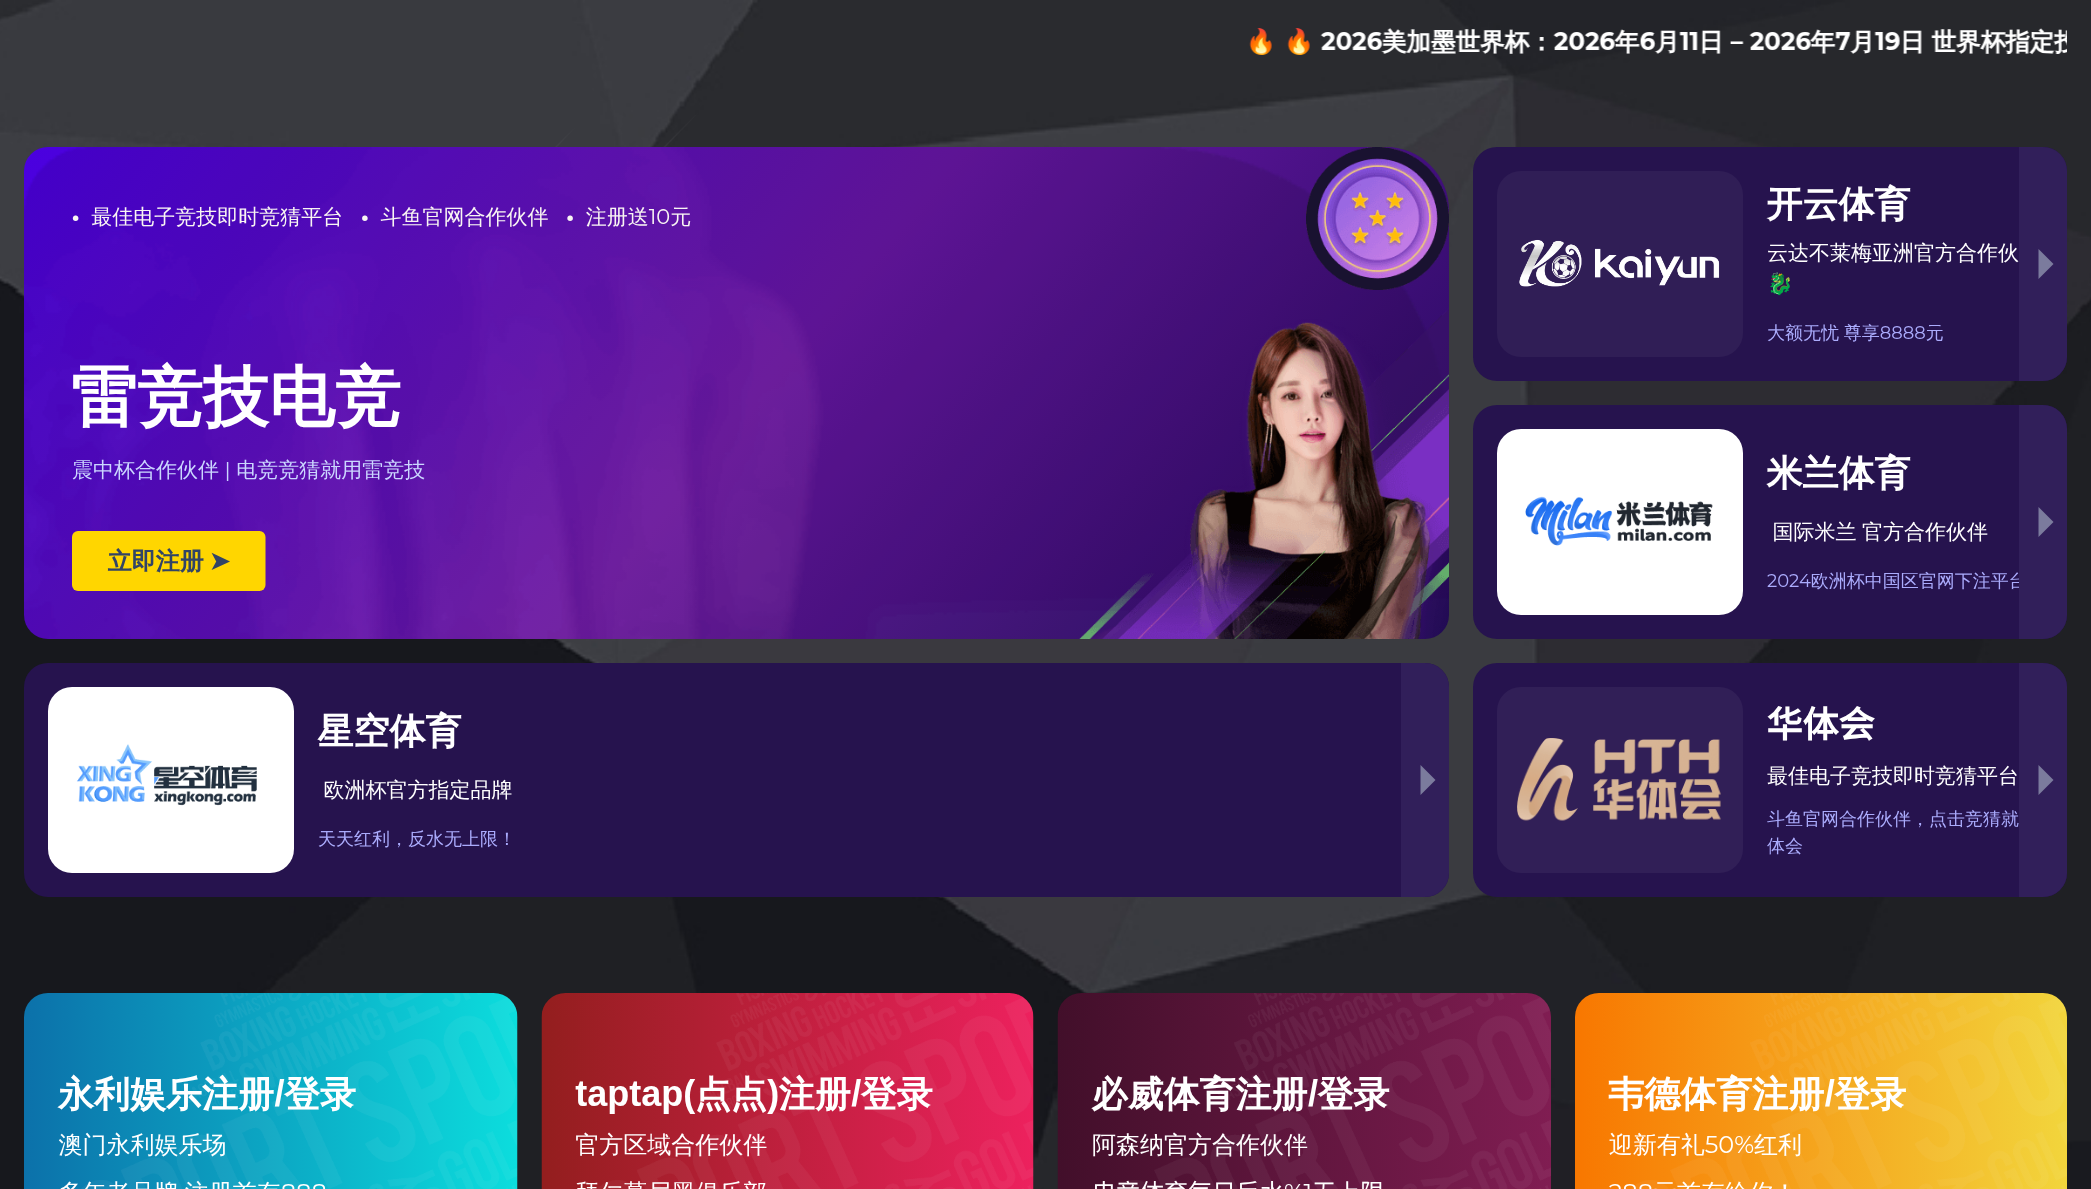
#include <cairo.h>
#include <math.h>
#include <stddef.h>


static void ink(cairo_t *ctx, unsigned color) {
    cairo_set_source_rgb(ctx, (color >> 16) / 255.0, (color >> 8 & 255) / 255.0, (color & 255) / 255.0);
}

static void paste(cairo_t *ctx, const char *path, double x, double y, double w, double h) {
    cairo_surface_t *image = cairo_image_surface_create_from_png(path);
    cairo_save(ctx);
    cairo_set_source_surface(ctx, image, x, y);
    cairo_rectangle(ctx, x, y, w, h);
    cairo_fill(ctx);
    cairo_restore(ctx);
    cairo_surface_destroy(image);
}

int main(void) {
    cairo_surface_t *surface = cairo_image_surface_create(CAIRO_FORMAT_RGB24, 2091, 1189);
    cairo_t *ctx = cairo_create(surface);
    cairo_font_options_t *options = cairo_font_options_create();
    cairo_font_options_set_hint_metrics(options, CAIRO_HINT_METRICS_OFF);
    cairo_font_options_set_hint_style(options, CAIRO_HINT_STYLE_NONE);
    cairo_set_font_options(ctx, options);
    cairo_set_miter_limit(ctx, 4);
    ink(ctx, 0xFFFFFF);
    cairo_paint(ctx);
    paste(ctx, "media/1.png", 0, 0, 2091, 1189);
    cairo_surface_write_to_png(surface, "image.png");
    cairo_font_options_destroy(options);
    cairo_destroy(ctx);
    cairo_surface_destroy(surface);
    return 0;
}
